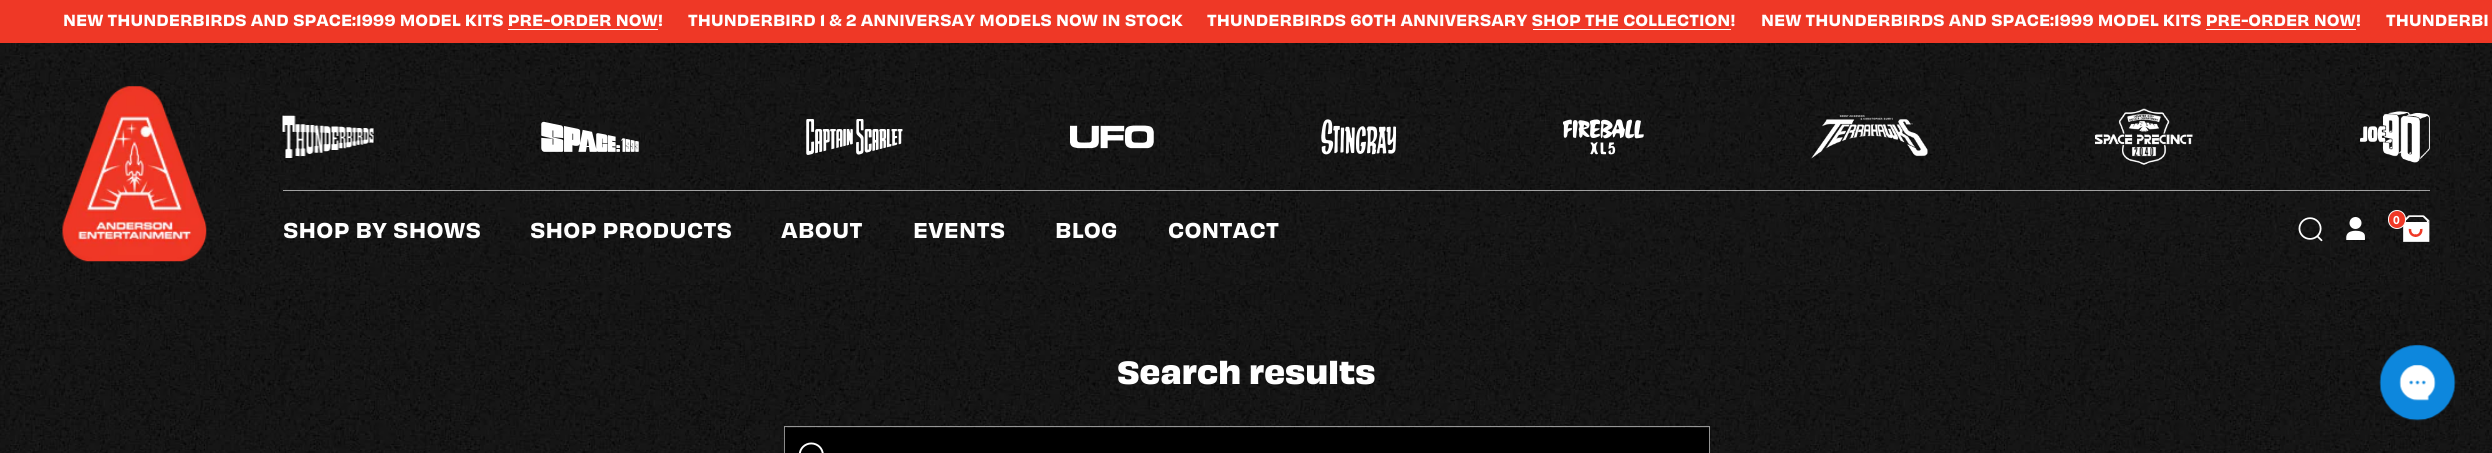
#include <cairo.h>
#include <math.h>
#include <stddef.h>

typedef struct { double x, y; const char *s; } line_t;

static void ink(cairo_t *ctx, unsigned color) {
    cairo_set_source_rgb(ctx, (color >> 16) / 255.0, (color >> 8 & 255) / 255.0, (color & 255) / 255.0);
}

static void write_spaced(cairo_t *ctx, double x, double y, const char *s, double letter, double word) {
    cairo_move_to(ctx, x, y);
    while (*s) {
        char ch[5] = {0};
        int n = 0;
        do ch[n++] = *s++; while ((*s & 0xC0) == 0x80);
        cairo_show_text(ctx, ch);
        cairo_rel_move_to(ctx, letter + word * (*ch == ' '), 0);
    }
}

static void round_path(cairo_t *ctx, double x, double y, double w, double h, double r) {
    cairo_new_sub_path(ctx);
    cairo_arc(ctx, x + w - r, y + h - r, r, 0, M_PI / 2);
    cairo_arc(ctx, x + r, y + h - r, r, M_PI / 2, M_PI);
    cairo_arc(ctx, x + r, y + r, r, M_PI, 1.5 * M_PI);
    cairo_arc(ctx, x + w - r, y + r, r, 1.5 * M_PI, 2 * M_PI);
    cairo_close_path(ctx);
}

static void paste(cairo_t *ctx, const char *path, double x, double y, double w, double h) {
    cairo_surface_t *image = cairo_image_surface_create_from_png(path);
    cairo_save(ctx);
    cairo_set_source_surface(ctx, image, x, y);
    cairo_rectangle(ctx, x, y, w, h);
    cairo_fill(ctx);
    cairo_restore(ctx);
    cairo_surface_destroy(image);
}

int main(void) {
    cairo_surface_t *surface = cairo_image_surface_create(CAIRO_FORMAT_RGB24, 2492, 453);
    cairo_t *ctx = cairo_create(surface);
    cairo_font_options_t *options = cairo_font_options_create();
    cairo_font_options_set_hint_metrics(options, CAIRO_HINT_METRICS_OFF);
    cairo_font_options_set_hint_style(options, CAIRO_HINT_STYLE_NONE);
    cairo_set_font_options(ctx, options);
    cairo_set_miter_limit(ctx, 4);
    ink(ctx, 0xFFFFFF);
    cairo_paint(ctx);
    paste(ctx, "media/1.png", 0, 285, 2492, 168);
    ink(ctx, 0xEF3826);
    cairo_rectangle(ctx, 0, 0, 2492, 43);
    cairo_fill(ctx);
    cairo_select_font_face(ctx, "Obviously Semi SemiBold", CAIRO_FONT_SLANT_NORMAL, CAIRO_FONT_WEIGHT_NORMAL);
    cairo_set_font_size(ctx, 15);
    ink(ctx, 0xFFFFFF);
    cairo_move_to(ctx, 63, 26);
    cairo_show_text(ctx, "NEW THUNDERBIRDS AND SPACE:1999 MODEL KITS PRE-ORDER NOW!");
    cairo_rectangle(ctx, 508, 29, 150, 1);
    cairo_fill(ctx);
    cairo_move_to(ctx, 688, 26);
    cairo_show_text(ctx, "THUNDERBIRD 1 & 2 ANNIVERSAY MODELS NOW IN STOCK");
    cairo_move_to(ctx, 1207, 26);
    cairo_show_text(ctx, "THUNDERBIRDS 60TH ANNIVERSARY SHOP THE COLLECTION!");
    cairo_rectangle(ctx, 1533, 29, 198, 1);
    cairo_fill(ctx);
    cairo_move_to(ctx, 1761, 26);
    cairo_show_text(ctx, "NEW THUNDERBIRDS AND SPACE:1999 MODEL KITS PRE-ORDER NOW!");
    cairo_rectangle(ctx, 2206, 29, 150, 1);
    cairo_fill(ctx);
    cairo_move_to(ctx, 2386, 26);
    cairo_show_text(ctx, "THUNDERBI");
    paste(ctx, "media/2.png", 0, 43, 2492, 242);
    paste(ctx, "media/3.png", 62, 86, 145, 176);
    cairo_set_source_rgba(ctx, 1, 1, 1, 0.6);
    cairo_rectangle(ctx, 283, 190, 2147, 1);
    cairo_fill(ctx);
    paste(ctx, "media/4.png", 282, 115, 92, 43);
    paste(ctx, "media/5.png", 541, 121, 98, 31);
    paste(ctx, "media/6.png", 806, 119, 97, 36);
    paste(ctx, "media/7.png", 1070, 125, 84, 24);
    paste(ctx, "media/8.png", 1321, 119, 75, 36);
    paste(ctx, "media/9.png", 1563, 119, 81, 36);
    paste(ctx, "media/10.png", 1811, 115, 117, 44);
    paste(ctx, "media/11.png", 2095, 108, 98, 57);
    paste(ctx, "media/12.png", 2360, 111, 70, 52);
    paste(ctx, "media/13.png", 2298, 217, 25, 25);
    paste(ctx, "media/14.png", 2346, 217, 19, 23);
    paste(ctx, "media/15.png", 2403, 215, 27, 27);
    ink(ctx, 0xEF3826);
    round_path(ctx, 2388.5, 210.5, 17, 18, 8.5);
    cairo_fill_preserve(ctx);
    ink(ctx, 0xFFFFFF);
    cairo_set_line_width(ctx, 1);
    cairo_stroke(ctx);
    cairo_select_font_face(ctx, "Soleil", CAIRO_FONT_SLANT_NORMAL, CAIRO_FONT_WEIGHT_BOLD);
    cairo_set_font_size(ctx, 12);
    cairo_move_to(ctx, 2393, 224);
    cairo_show_text(ctx, "0");
    cairo_select_font_face(ctx, "Obviously Semi SemiBold", CAIRO_FONT_SLANT_NORMAL, CAIRO_FONT_WEIGHT_NORMAL);
    cairo_set_font_size(ctx, 20);
    {
        static const line_t items[] = {
            {283, 238, "SHOP BY SHOWS"},
            {530, 238, "SHOP PRODUCTS"},
            {781, 238, "ABOUT"},
            {913, 238, "EVENTS"},
            {1055, 238, "BLOG"},
            {1168, 238, "CONTACT"},
        };
        for (size_t i = 0; i < sizeof items / sizeof *items; i++) {
            write_spaced(ctx, items[i].x, items[i].y, items[i].s, 0.25, 0);
        }
    }
    cairo_select_font_face(ctx, "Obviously", CAIRO_FONT_SLANT_NORMAL, CAIRO_FONT_WEIGHT_BOLD);
    cairo_set_font_size(ctx, 30);
    cairo_move_to(ctx, 1117, 384);
    cairo_show_text(ctx, "Search results");
    ink(ctx, 0x000000);
    cairo_rectangle(ctx, 784, 428, 925, 25);
    cairo_fill(ctx);
    paste(ctx, "media/16.png", 798, 442, 26, 11);
    cairo_rectangle(ctx, 784.5, 426.5, 925, 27);
    cairo_set_source_rgba(ctx, 1, 1, 1, 0.55);
    cairo_stroke(ctx);
    paste(ctx, "media/17.png", 2379, 344, 77, 77);
    cairo_surface_write_to_png(surface, "image.png");
    cairo_font_options_destroy(options);
    cairo_destroy(ctx);
    cairo_surface_destroy(surface);
    return 0;
}
